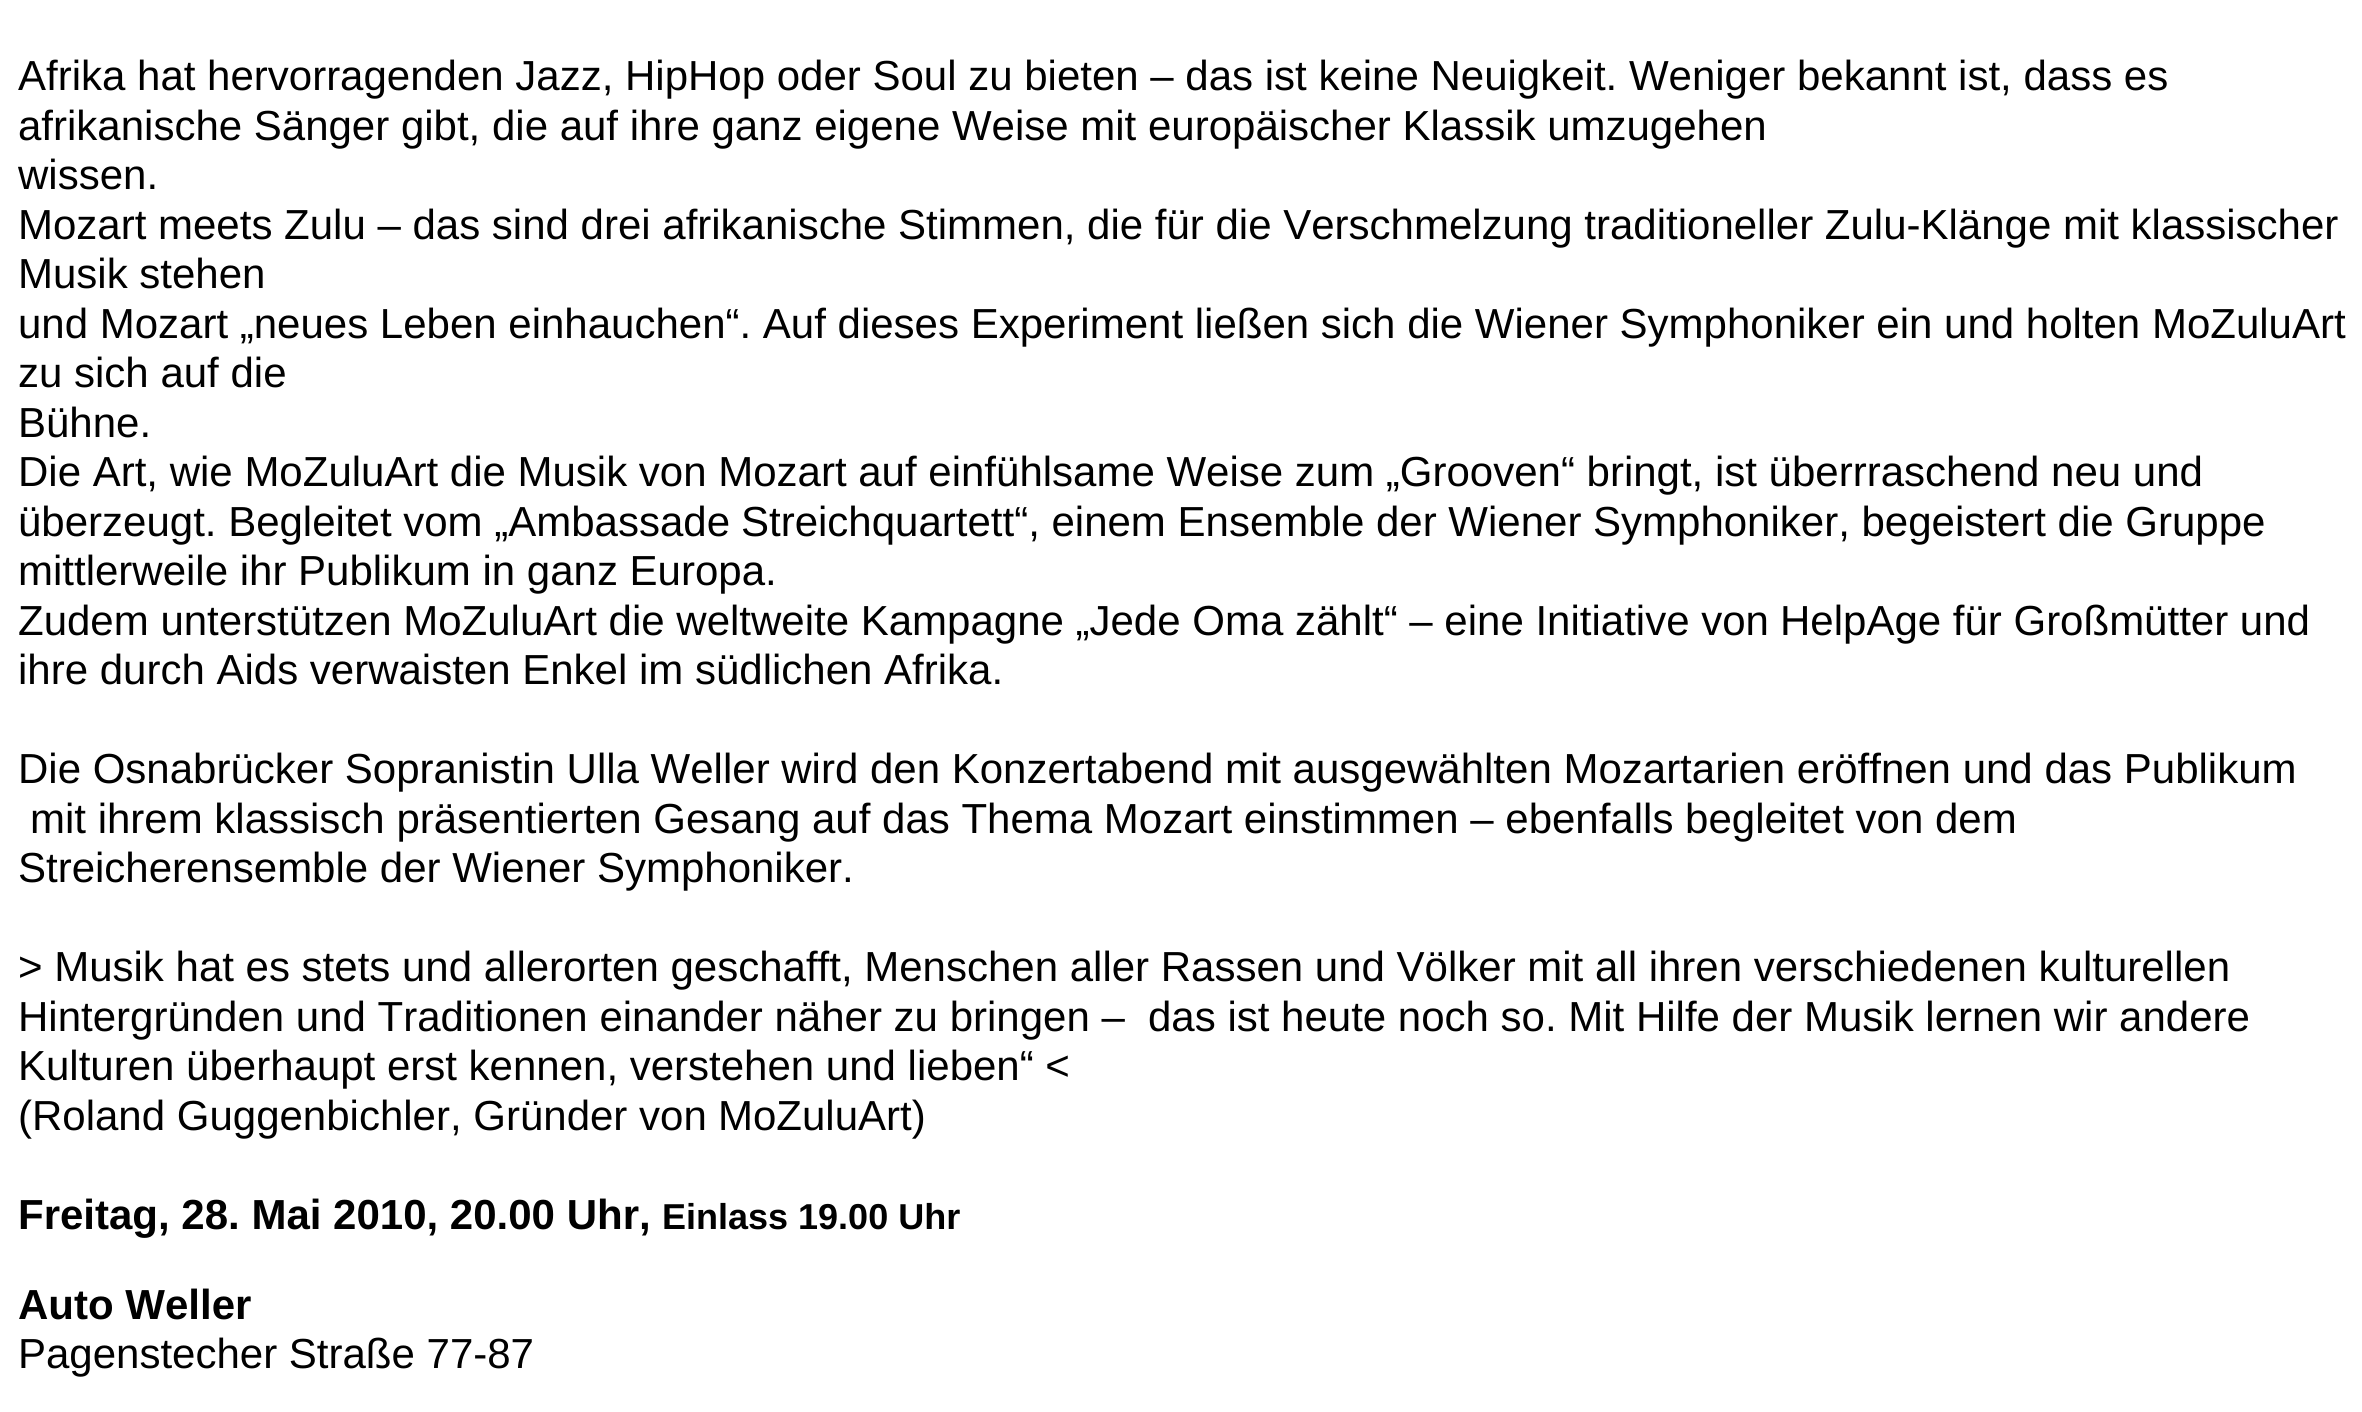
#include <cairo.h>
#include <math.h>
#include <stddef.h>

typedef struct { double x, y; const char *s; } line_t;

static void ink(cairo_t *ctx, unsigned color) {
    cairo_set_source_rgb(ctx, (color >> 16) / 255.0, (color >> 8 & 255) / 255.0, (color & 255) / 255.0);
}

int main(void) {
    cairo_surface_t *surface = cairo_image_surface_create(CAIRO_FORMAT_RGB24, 2362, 1412);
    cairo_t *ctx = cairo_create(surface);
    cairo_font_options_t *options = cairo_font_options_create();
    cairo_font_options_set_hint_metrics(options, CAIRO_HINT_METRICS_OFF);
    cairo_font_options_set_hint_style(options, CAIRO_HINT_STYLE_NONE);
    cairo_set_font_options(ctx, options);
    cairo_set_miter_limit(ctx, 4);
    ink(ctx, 0xFFFFFF);
    cairo_paint(ctx);
    cairo_select_font_face(ctx, "Liberation Sans", CAIRO_FONT_SLANT_NORMAL, CAIRO_FONT_WEIGHT_NORMAL);
    cairo_set_font_size(ctx, 42);
    ink(ctx, 0x000000);
    {
        static const line_t items[] = {
            {18, 90, "Afrika hat hervorragenden Jazz,"},
            {625, 90, "HipHop oder Soul zu bieten – das ist keine Neuigkeit. Weniger bekannt ist, dass es"},
            {18, 140, "afrikanische Sänger gibt, die auf ihre ganz eigene Weise mit europäischer Klassik umzugehen"},
            {18, 189, "wissen."},
            {18, 239, "Mozart meets Zulu – das sind drei afrikanische Stimmen, die für die Verschmelzung traditioneller Zulu-Klänge mit klassischer"},
            {18, 288, "Musik stehen"},
            {18, 338, "und Mozart „neues Leben einhauchen“. Auf dieses Experiment ließen sich die Wiener Symphoniker ein und holten MoZuluArt"},
            {18, 387, "zu sich auf die"},
            {18, 437, "Bühne."},
            {18, 486, "Die Art, wie MoZuluArt die Musik von Mozart auf einfühlsame Weise zum „Grooven“ bringt, ist überrraschend neu und"},
            {18, 536, "überzeugt. Begleitet vom „Ambassade"},
            {741, 536, "Streichquartett“, einem Ensemble der Wiener Symphoniker, begeistert die Gruppe"},
            {18, 585, "mittlerweile ihr Publikum in ganz Europa."},
            {18, 635, "Zudem unterstützen MoZuluArt die weltweite Kampagne „Jede Oma zählt“ – eine Initiative von"},
            {1780, 635, "HelpAge für Großmütter und"},
            {18, 684, "ihre durch Aids verwaisten Enkel im südlichen Afrika."},
            {18, 783, "Die Osnabrücker Sopranistin Ulla Weller wird den Konzertabend mit ausgewählten Mozartarien eröffnen und das Publikum"},
            {30, 833, "mit ihrem klassisch präsentierten Gesang auf das Thema Mozart einstimmen – ebenfalls begleitet von dem"},
            {18, 882, "Streicherensemble der Wiener Symphoniker."},
            {18, 981, "> Musik hat es stets und allerorten geschafft, Menschen aller Rassen und Völker mit all ihren verschiedenen kulturellen"},
            {18, 1031, "Hintergründen und Traditionen einander näher zu bringen –"},
            {1148, 1031, "das ist heute noch so. Mit Hilfe der Musik lernen wir andere"},
            {18, 1080, "Kulturen überhaupt erst kennen, verstehen und lieben“ <"},
            {18, 1130, "(Roland Guggenbichler, Gründer von"},
            {718, 1130, "MoZuluArt)"},
        };
        for (size_t i = 0; i < sizeof items / sizeof *items; i++) {
            cairo_move_to(ctx, items[i].x, items[i].y);
            cairo_show_text(ctx, items[i].s);
        }
    }
    cairo_select_font_face(ctx, "Liberation Sans", CAIRO_FONT_SLANT_NORMAL, CAIRO_FONT_WEIGHT_BOLD);
    cairo_move_to(ctx, 18, 1229);
    cairo_show_text(ctx, "Freitag, 28. Mai 2010, 20.00 Uhr,");
    cairo_set_font_size(ctx, 36);
    cairo_move_to(ctx, 662, 1229);
    cairo_show_text(ctx, "Einlass 19.00 Uhr");
    cairo_set_font_size(ctx, 42);
    cairo_move_to(ctx, 18, 1319);
    cairo_show_text(ctx, "Auto Weller");
    cairo_select_font_face(ctx, "Liberation Sans", CAIRO_FONT_SLANT_NORMAL, CAIRO_FONT_WEIGHT_NORMAL);
    cairo_move_to(ctx, 18, 1368);
    cairo_show_text(ctx, "Pagenstecher Straße 77-87");
    cairo_surface_write_to_png(surface, "image.png");
    cairo_font_options_destroy(options);
    cairo_destroy(ctx);
    cairo_surface_destroy(surface);
    return 0;
}
